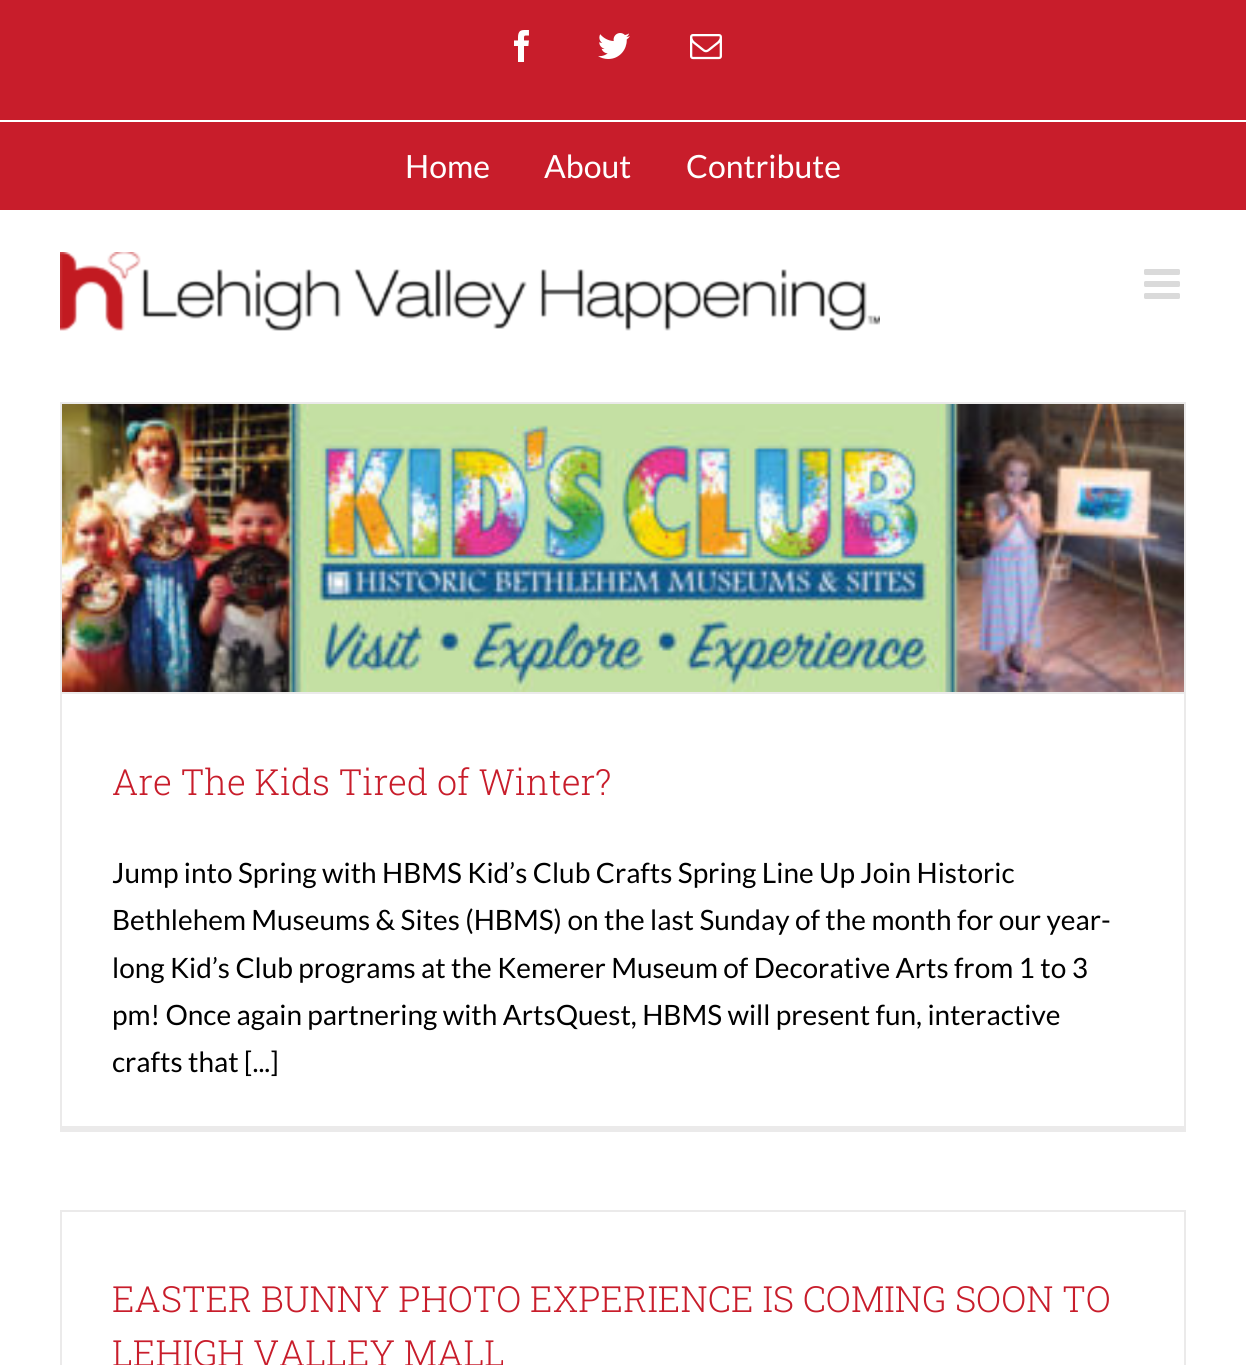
#include <cairo.h>
#include <math.h>
#include <stddef.h>

typedef struct { double x, y; const char *s; } line_t;
typedef struct { double x, y, w, h; unsigned color; } box_t;

static void ink(cairo_t *ctx, unsigned color) {
    cairo_set_source_rgb(ctx, (color >> 16) / 255.0, (color >> 8 & 255) / 255.0, (color & 255) / 255.0);
}

static void paste(cairo_t *ctx, const char *path, double x, double y, double w, double h) {
    cairo_surface_t *image = cairo_image_surface_create_from_png(path);
    cairo_save(ctx);
    cairo_set_source_surface(ctx, image, x, y);
    cairo_rectangle(ctx, x, y, w, h);
    cairo_fill(ctx);
    cairo_restore(ctx);
    cairo_surface_destroy(image);
}

int main(void) {
    cairo_surface_t *surface = cairo_image_surface_create(CAIRO_FORMAT_RGB24, 1246, 1365);
    cairo_t *ctx = cairo_create(surface);
    cairo_font_options_t *options = cairo_font_options_create();
    cairo_font_options_set_hint_metrics(options, CAIRO_HINT_METRICS_OFF);
    cairo_font_options_set_hint_style(options, CAIRO_HINT_STYLE_NONE);
    cairo_set_font_options(ctx, options);
    cairo_set_miter_limit(ctx, 4);
    ink(ctx, 0xFFFFFF);
    cairo_paint(ctx);
    ink(ctx, 0xC81D2B);
    cairo_rectangle(ctx, 0, 0, 1246, 210);
    cairo_fill(ctx);
    ink(ctx, 0xFFFFFF);
    cairo_rectangle(ctx, 0, 120, 1246, 2);
    cairo_fill(ctx);
    paste(ctx, "media/1.png", 514, 30, 15, 32);
    paste(ctx, "media/2.png", 598, 33, 32, 26);
    paste(ctx, "media/3.png", 690, 34, 32, 26);
    cairo_select_font_face(ctx, "Lato", CAIRO_FONT_SLANT_NORMAL, CAIRO_FONT_WEIGHT_NORMAL);
    cairo_set_font_size(ctx, 32);
    {
        static const line_t items[] = {
            {405, 178, "Home"},
            {544, 178, "About"},
            {686, 178, "Contribute"},
        };
        for (size_t i = 0; i < sizeof items / sizeof *items; i++) {
            cairo_move_to(ctx, items[i].x, items[i].y);
            cairo_show_text(ctx, items[i].s);
        }
    }
    paste(ctx, "media/4.png", 60, 252, 820, 79);
    paste(ctx, "media/5.png", 1144, 269, 36, 30);
    {
        static const box_t items[] = {
            {60, 402, 1126, 2, 0xEBEAEA},
            {1184, 402, 2, 730, 0xEBEAEA},
            {60, 1126, 1126, 6, 0xEBEAEA},
            {60, 402, 2, 730, 0xEBEAEA},
            {62, 692, 1122, 2, 0xEBEAEA},
        };
        for (size_t i = 0; i < sizeof items / sizeof *items; i++) {
            ink(ctx, items[i].color);
            cairo_rectangle(ctx, items[i].x, items[i].y, items[i].w, items[i].h);
            cairo_fill(ctx);
        }
    }
    paste(ctx, "media/6.png", 62, 404, 1122, 288);
    cairo_select_font_face(ctx, "Roboto Slab Light", CAIRO_FONT_SLANT_NORMAL, CAIRO_FONT_WEIGHT_NORMAL);
    cairo_set_font_size(ctx, 36);
    ink(ctx, 0xC81D2B);
    cairo_move_to(ctx, 112, 795);
    cairo_show_text(ctx, "Are The Kids Tired of Winter?");
    cairo_select_font_face(ctx, "Lato", CAIRO_FONT_SLANT_NORMAL, CAIRO_FONT_WEIGHT_NORMAL);
    cairo_set_font_size(ctx, 28);
    ink(ctx, 0x000000);
    {
        static const line_t items[] = {
            {112, 883, "Jump into Spring with HBMS Kid’s Club Crafts Spring Line Up Join Historic"},
            {112, 930, "Bethlehem Museums & Sites (HBMS) on the last Sunday of the month for our year-"},
            {112, 978, "long Kid’s Club programs at the Kemerer Museum of Decorative Arts from 1 to 3"},
            {112, 1025, "pm! Once again partnering with ArtsQuest, HBMS will present fun, interactive"},
            {112, 1072, "crafts that [...]"},
        };
        for (size_t i = 0; i < sizeof items / sizeof *items; i++) {
            cairo_move_to(ctx, items[i].x, items[i].y);
            cairo_show_text(ctx, items[i].s);
        }
    }
    {
        static const box_t items[] = {
            {60, 1210, 1126, 2, 0xEBEAEA},
            {1184, 1210, 2, 155, 0xEBEAEA},
            {60, 1210, 2, 155, 0xEBEAEA},
        };
        for (size_t i = 0; i < sizeof items / sizeof *items; i++) {
            ink(ctx, items[i].color);
            cairo_rectangle(ctx, items[i].x, items[i].y, items[i].w, items[i].h);
            cairo_fill(ctx);
        }
    }
    cairo_select_font_face(ctx, "Roboto Slab Light", CAIRO_FONT_SLANT_NORMAL, CAIRO_FONT_WEIGHT_NORMAL);
    cairo_set_font_size(ctx, 36);
    ink(ctx, 0xC81D2B);
    cairo_move_to(ctx, 112, 1312);
    cairo_show_text(ctx, "EASTER BUNNY PHOTO EXPERIENCE IS COMING SOON TO");
    cairo_move_to(ctx, 112, 1366);
    cairo_show_text(ctx, "LEHIGH VALLEY MALL");
    cairo_surface_write_to_png(surface, "image.png");
    cairo_font_options_destroy(options);
    cairo_destroy(ctx);
    cairo_surface_destroy(surface);
    return 0;
}
